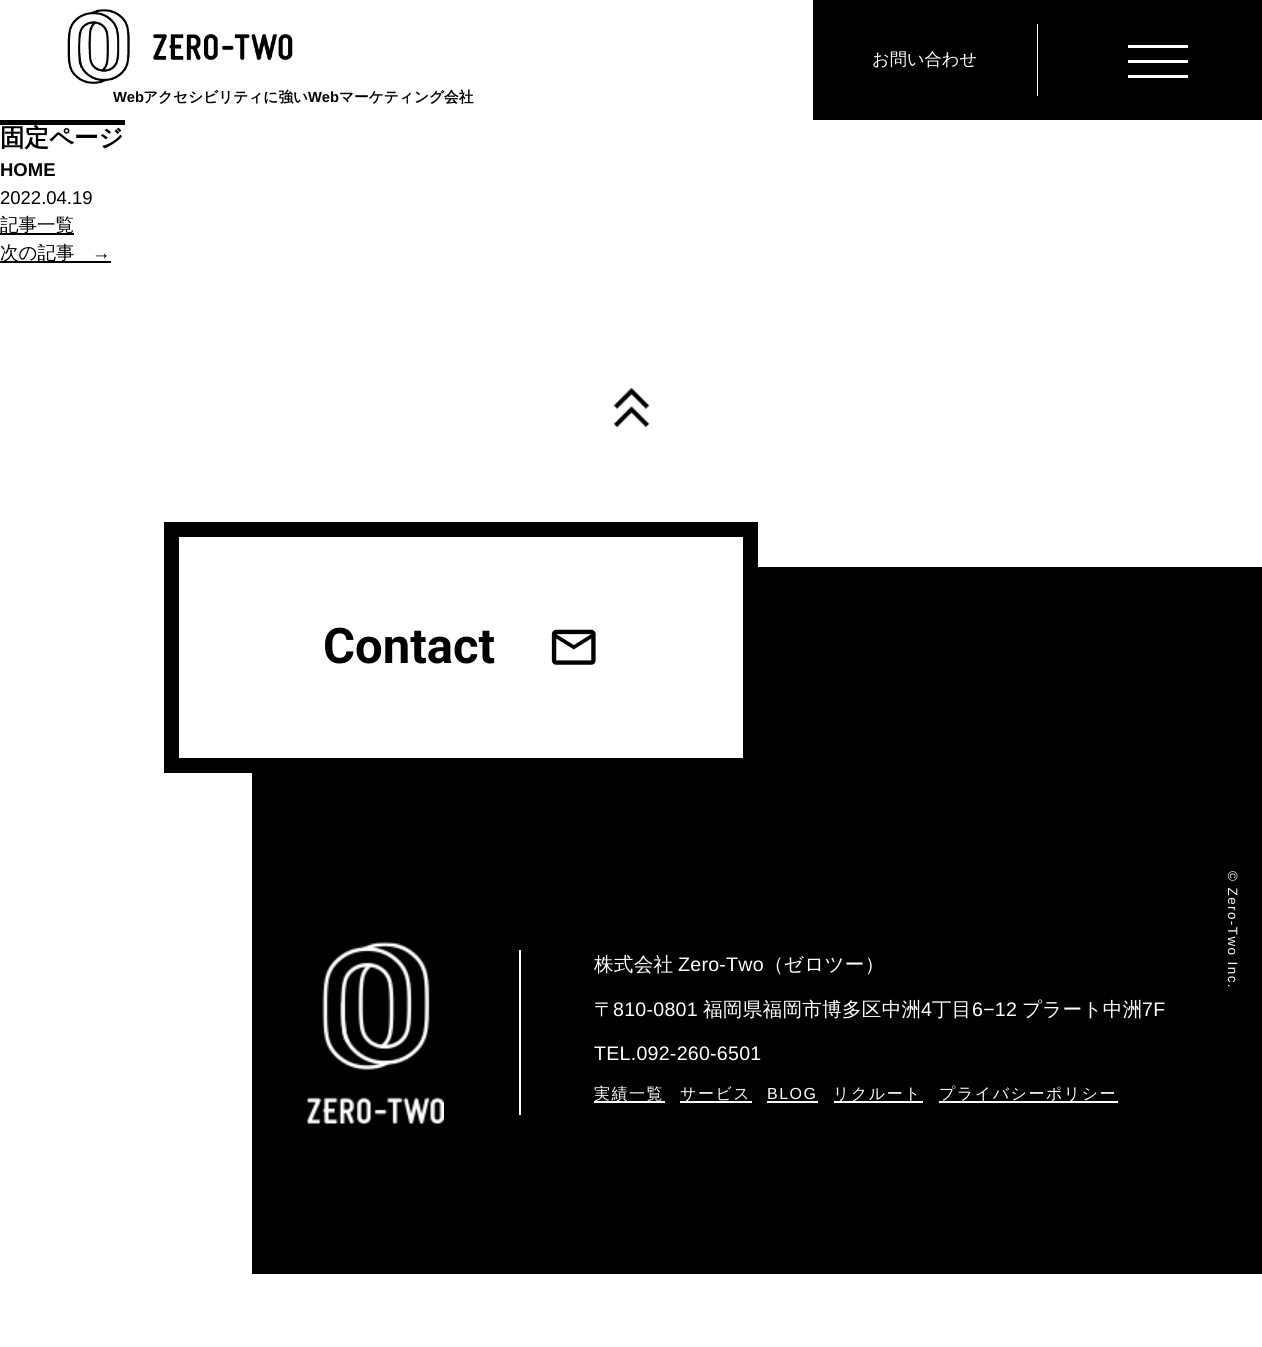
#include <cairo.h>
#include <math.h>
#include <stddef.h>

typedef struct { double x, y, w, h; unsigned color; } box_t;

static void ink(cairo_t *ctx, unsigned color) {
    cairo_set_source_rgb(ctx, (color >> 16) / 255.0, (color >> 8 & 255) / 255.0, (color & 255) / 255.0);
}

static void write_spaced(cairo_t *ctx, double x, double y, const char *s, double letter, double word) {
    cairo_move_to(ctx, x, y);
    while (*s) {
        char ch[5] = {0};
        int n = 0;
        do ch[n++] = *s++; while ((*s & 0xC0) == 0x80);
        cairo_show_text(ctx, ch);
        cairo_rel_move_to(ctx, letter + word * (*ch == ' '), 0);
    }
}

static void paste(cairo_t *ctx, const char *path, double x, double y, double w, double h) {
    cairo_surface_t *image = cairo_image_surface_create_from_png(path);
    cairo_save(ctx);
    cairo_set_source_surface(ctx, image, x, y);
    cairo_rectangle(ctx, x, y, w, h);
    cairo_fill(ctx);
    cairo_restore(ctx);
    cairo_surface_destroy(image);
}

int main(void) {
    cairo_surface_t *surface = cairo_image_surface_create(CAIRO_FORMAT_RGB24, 1262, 1347);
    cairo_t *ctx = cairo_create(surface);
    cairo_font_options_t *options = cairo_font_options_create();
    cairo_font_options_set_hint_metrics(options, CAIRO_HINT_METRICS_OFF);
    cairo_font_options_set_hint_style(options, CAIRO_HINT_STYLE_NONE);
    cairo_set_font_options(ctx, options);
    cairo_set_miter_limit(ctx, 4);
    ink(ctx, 0xFFFFFF);
    cairo_paint(ctx);
    ink(ctx, 0x000000);
    cairo_rectangle(ctx, 813, 0, 449, 120);
    cairo_fill(ctx);
    ink(ctx, 0xFFFFFF);
    cairo_rectangle(ctx, 1037, 24, 1, 72);
    cairo_fill(ctx);
    cairo_select_font_face(ctx, "WenQuanYi Zen Hei Medium", CAIRO_FONT_SLANT_NORMAL, CAIRO_FONT_WEIGHT_NORMAL);
    cairo_set_font_size(ctx, 17.25);
    cairo_move_to(ctx, 872, 65);
    cairo_show_text(ctx, "お問い合わせ");
    {
        static const box_t items[] = {
            {1128, 45, 60, 3, 0xFFFFFF},
            {1128, 60, 60, 3, 0xFFFFFF},
            {1128, 75, 60, 3, 0xFFFFFF},
        };
        for (size_t i = 0; i < sizeof items / sizeof *items; i++) {
            ink(ctx, items[i].color);
            cairo_rectangle(ctx, items[i].x, items[i].y, items[i].w, items[i].h);
            cairo_fill(ctx);
        }
    }
    paste(ctx, "media/1.png", 67, 9, 226, 75);
    cairo_select_font_face(ctx, "Liberation Sans", CAIRO_FONT_SLANT_NORMAL, CAIRO_FONT_WEIGHT_BOLD);
    cairo_set_font_size(ctx, 14.7);
    ink(ctx, 0x000000);
    cairo_move_to(ctx, 113, 102);
    cairo_show_text(ctx, "Web");
    cairo_select_font_face(ctx, "WenQuanYi Zen Hei", CAIRO_FONT_SLANT_NORMAL, CAIRO_FONT_WEIGHT_BOLD);
    cairo_move_to(ctx, 143, 102);
    cairo_show_text(ctx, "アクセシビリティに強い");
    cairo_select_font_face(ctx, "Liberation Sans", CAIRO_FONT_SLANT_NORMAL, CAIRO_FONT_WEIGHT_BOLD);
    cairo_move_to(ctx, 308, 102);
    cairo_show_text(ctx, "Web");
    cairo_select_font_face(ctx, "WenQuanYi Zen Hei", CAIRO_FONT_SLANT_NORMAL, CAIRO_FONT_WEIGHT_BOLD);
    cairo_move_to(ctx, 339, 102);
    cairo_show_text(ctx, "マーケティング会社");
    cairo_rectangle(ctx, 0, 120, 125, 5);
    cairo_fill(ctx);
    cairo_set_font_size(ctx, 24.5);
    cairo_move_to(ctx, 0, 146);
    cairo_show_text(ctx, "固定ページ");
    cairo_select_font_face(ctx, "Liberation Sans", CAIRO_FONT_SLANT_NORMAL, CAIRO_FONT_WEIGHT_BOLD);
    cairo_set_font_size(ctx, 18.5);
    cairo_move_to(ctx, 0, 176);
    cairo_show_text(ctx, "HOME");
    cairo_select_font_face(ctx, "Liberation Sans", CAIRO_FONT_SLANT_NORMAL, CAIRO_FONT_WEIGHT_NORMAL);
    cairo_move_to(ctx, 0, 204);
    cairo_show_text(ctx, "2022.04.19");
    cairo_rectangle(ctx, 0, 233, 74, 2);
    cairo_fill(ctx);
    cairo_select_font_face(ctx, "WenQuanYi Zen Hei Medium", CAIRO_FONT_SLANT_NORMAL, CAIRO_FONT_WEIGHT_NORMAL);
    cairo_move_to(ctx, 0, 231);
    cairo_show_text(ctx, "記事一覧");
    cairo_rectangle(ctx, 0, 261, 111, 2);
    cairo_fill(ctx);
    cairo_move_to(ctx, 0, 259);
    cairo_show_text(ctx, "次の記事");
    cairo_select_font_face(ctx, "Liberation Sans", CAIRO_FONT_SLANT_NORMAL, CAIRO_FONT_WEIGHT_NORMAL);
    cairo_move_to(ctx, 92, 259);
    cairo_show_text(ctx, "→");
    paste(ctx, "media/2.png", 613, 388, 37, 40);
    cairo_rectangle(ctx, 252, 567, 1010, 707);
    cairo_fill(ctx);
    ink(ctx, 0xFFFFFF);
    cairo_rectangle(ctx, 252, 567, 491, 191);
    cairo_fill(ctx);
    cairo_rectangle(ctx, 171.5, 529.5, 579, 236);
    ink(ctx, 0x000000);
    cairo_set_line_width(ctx, 15);
    cairo_stroke(ctx);
    cairo_select_font_face(ctx, "Roboto", CAIRO_FONT_SLANT_NORMAL, CAIRO_FONT_WEIGHT_BOLD);
    cairo_set_font_size(ctx, 49);
    cairo_move_to(ctx, 323, 663);
    cairo_show_text(ctx, "Contact");
    paste(ctx, "media/3.png", 551, 629, 45, 36);
    cairo_select_font_face(ctx, "Liberation Sans", CAIRO_FONT_SLANT_NORMAL, CAIRO_FONT_WEIGHT_NORMAL);
    cairo_set_font_size(ctx, 13.5);
    ink(ctx, 0xFFFFFF);
    cairo_save(ctx);
    cairo_translate(ctx, 1228, 871);
    cairo_rotate(ctx, 90 * M_PI / 180);
    write_spaced(ctx, 0, 0, "© Zero-Two Inc.", 1.4, 0);
    cairo_restore(ctx);
    paste(ctx, "media/4.png", 307, 942, 137, 182);
    cairo_rectangle(ctx, 519, 950, 2, 165);
    cairo_fill(ctx);
    cairo_select_font_face(ctx, "WenQuanYi Zen Hei Medium", CAIRO_FONT_SLANT_NORMAL, CAIRO_FONT_WEIGHT_NORMAL);
    cairo_set_font_size(ctx, 19.6);
    write_spaced(ctx, 594, 971, "株式会社", 0.25, 0);
    cairo_select_font_face(ctx, "Liberation Sans", CAIRO_FONT_SLANT_NORMAL, CAIRO_FONT_WEIGHT_NORMAL);
    write_spaced(ctx, 678, 971, "Zero-Two", 0.25, 0);
    cairo_select_font_face(ctx, "WenQuanYi Zen Hei Medium", CAIRO_FONT_SLANT_NORMAL, CAIRO_FONT_WEIGHT_NORMAL);
    write_spaced(ctx, 764, 971, "（ゼロツー）", 0.25, 0);
    write_spaced(ctx, 594, 1016, "〒", 0.25, 0);
    cairo_select_font_face(ctx, "Liberation Sans", CAIRO_FONT_SLANT_NORMAL, CAIRO_FONT_WEIGHT_NORMAL);
    write_spaced(ctx, 613, 1016, "810-0801", 0.25, 0);
    cairo_select_font_face(ctx, "WenQuanYi Zen Hei Medium", CAIRO_FONT_SLANT_NORMAL, CAIRO_FONT_WEIGHT_NORMAL);
    write_spaced(ctx, 703, 1016, "福岡県福岡市博多区中洲", 0.25, 0);
    cairo_select_font_face(ctx, "Liberation Sans", CAIRO_FONT_SLANT_NORMAL, CAIRO_FONT_WEIGHT_NORMAL);
    write_spaced(ctx, 921, 1016, "4", 0.25, 0);
    cairo_select_font_face(ctx, "WenQuanYi Zen Hei Medium", CAIRO_FONT_SLANT_NORMAL, CAIRO_FONT_WEIGHT_NORMAL);
    write_spaced(ctx, 932, 1016, "丁目", 0.25, 0);
    cairo_select_font_face(ctx, "Liberation Sans", CAIRO_FONT_SLANT_NORMAL, CAIRO_FONT_WEIGHT_NORMAL);
    write_spaced(ctx, 972, 1016, "6−12", 0.25, 0);
    cairo_select_font_face(ctx, "WenQuanYi Zen Hei Medium", CAIRO_FONT_SLANT_NORMAL, CAIRO_FONT_WEIGHT_NORMAL);
    write_spaced(ctx, 1022, 1016, "プラート中洲", 0.25, 0);
    cairo_select_font_face(ctx, "Liberation Sans", CAIRO_FONT_SLANT_NORMAL, CAIRO_FONT_WEIGHT_NORMAL);
    write_spaced(ctx, 1142, 1016, "7F", 0.25, 0);
    write_spaced(ctx, 594, 1060, "TEL.092-260-6501", 0.25, 0);
    cairo_rectangle(ctx, 594, 1101, 71, 2);
    cairo_fill(ctx);
    cairo_select_font_face(ctx, "WenQuanYi Zen Hei Medium", CAIRO_FONT_SLANT_NORMAL, CAIRO_FONT_WEIGHT_NORMAL);
    cairo_set_font_size(ctx, 16);
    write_spaced(ctx, 594, 1099, "実績一覧", 1.5, 0);
    cairo_rectangle(ctx, 680, 1101, 72, 2);
    cairo_fill(ctx);
    write_spaced(ctx, 680, 1099, "サービス", 1.5, 0);
    cairo_select_font_face(ctx, "Liberation Sans", CAIRO_FONT_SLANT_NORMAL, CAIRO_FONT_WEIGHT_NORMAL);
    write_spaced(ctx, 767, 1099, "BLOG", 1.5, 0);
    cairo_rectangle(ctx, 767, 1101, 51, 2);
    cairo_fill(ctx);
    cairo_rectangle(ctx, 834, 1101, 89, 2);
    cairo_fill(ctx);
    cairo_select_font_face(ctx, "WenQuanYi Zen Hei Medium", CAIRO_FONT_SLANT_NORMAL, CAIRO_FONT_WEIGHT_NORMAL);
    write_spaced(ctx, 833, 1099, "リクルート", 1.5, 0);
    cairo_rectangle(ctx, 939, 1101, 179, 2);
    cairo_fill(ctx);
    write_spaced(ctx, 939, 1099, "プライバシーポリシー", 1.5, 0);
    cairo_surface_write_to_png(surface, "image.png");
    cairo_font_options_destroy(options);
    cairo_destroy(ctx);
    cairo_surface_destroy(surface);
    return 0;
}
